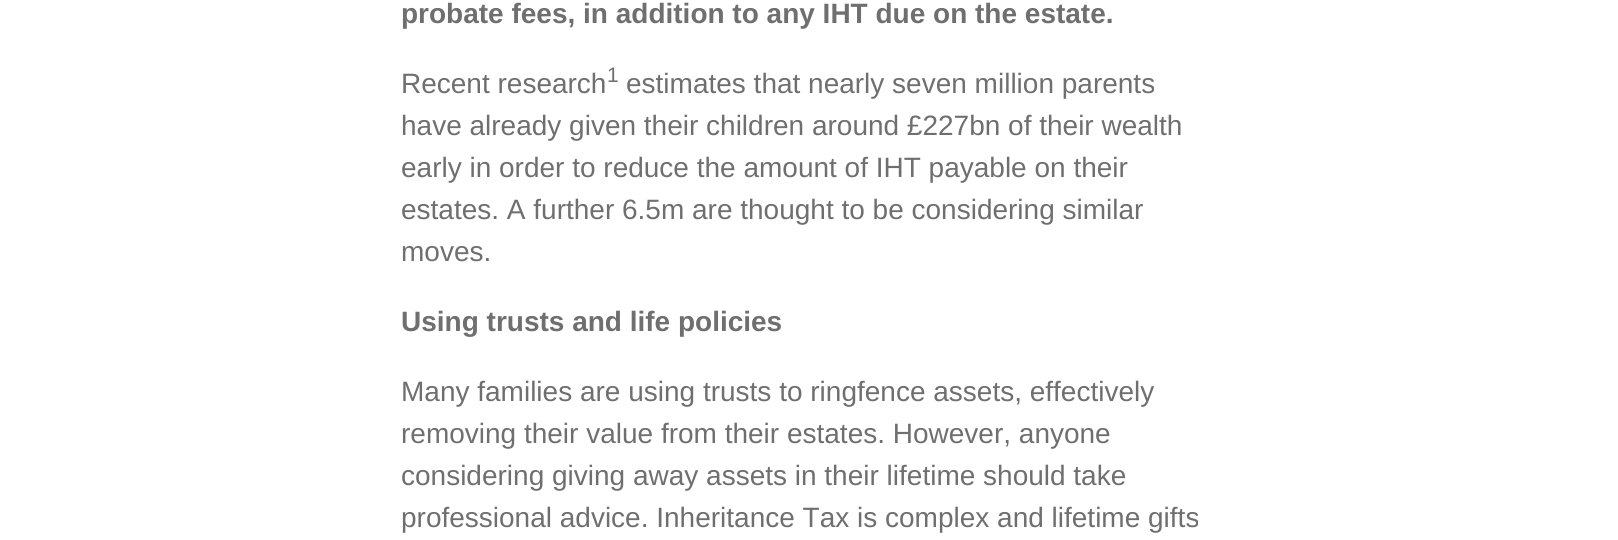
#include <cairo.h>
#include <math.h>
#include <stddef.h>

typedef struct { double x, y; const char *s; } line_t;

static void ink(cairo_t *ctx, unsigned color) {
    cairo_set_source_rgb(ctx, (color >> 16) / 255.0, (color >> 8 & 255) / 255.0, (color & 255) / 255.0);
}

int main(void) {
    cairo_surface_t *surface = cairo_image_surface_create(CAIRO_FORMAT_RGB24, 1618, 540);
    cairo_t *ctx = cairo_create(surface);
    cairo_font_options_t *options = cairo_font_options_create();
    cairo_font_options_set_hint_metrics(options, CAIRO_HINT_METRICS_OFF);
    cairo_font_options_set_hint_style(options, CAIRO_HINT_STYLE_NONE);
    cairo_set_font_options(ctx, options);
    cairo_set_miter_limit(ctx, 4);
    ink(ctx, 0xFFFFFF);
    cairo_paint(ctx);
    cairo_select_font_face(ctx, "Liberation Sans", CAIRO_FONT_SLANT_NORMAL, CAIRO_FONT_WEIGHT_BOLD);
    cairo_set_font_size(ctx, 28);
    ink(ctx, 0x706F6F);
    cairo_move_to(ctx, 401, 23);
    cairo_show_text(ctx, "probate fees, in addition to any IHT due on the estate.");
    cairo_select_font_face(ctx, "Liberation Sans", CAIRO_FONT_SLANT_NORMAL, CAIRO_FONT_WEIGHT_NORMAL);
    cairo_move_to(ctx, 401, 93);
    cairo_show_text(ctx, "Recent research");
    cairo_set_font_size(ctx, 21);
    cairo_move_to(ctx, 607, 82);
    cairo_show_text(ctx, "1");
    cairo_set_font_size(ctx, 28);
    {
        static const line_t items[] = {
            {626, 93, "estimates that nearly seven million parents"},
            {401, 135, "have already given their children around £227bn of their wealth"},
            {401, 177, "early in order to reduce the amount of IHT payable on their"},
            {401, 219, "estates. A further 6.5m are thought to be considering similar"},
            {401, 261, "moves."},
        };
        for (size_t i = 0; i < sizeof items / sizeof *items; i++) {
            cairo_move_to(ctx, items[i].x, items[i].y);
            cairo_show_text(ctx, items[i].s);
        }
    }
    cairo_select_font_face(ctx, "Liberation Sans", CAIRO_FONT_SLANT_NORMAL, CAIRO_FONT_WEIGHT_BOLD);
    cairo_move_to(ctx, 401, 331);
    cairo_show_text(ctx, "Using trusts and life policies");
    cairo_select_font_face(ctx, "Liberation Sans", CAIRO_FONT_SLANT_NORMAL, CAIRO_FONT_WEIGHT_NORMAL);
    {
        static const line_t items[] = {
            {401, 401, "Many families are using trusts to ringfence assets, effectively"},
            {401, 443, "removing their value from their estates. However, anyone"},
            {401, 485, "considering giving away assets in their lifetime should take"},
            {401, 527, "professional advice. Inheritance Tax is complex and lifetime gifts"},
        };
        for (size_t i = 0; i < sizeof items / sizeof *items; i++) {
            cairo_move_to(ctx, items[i].x, items[i].y);
            cairo_show_text(ctx, items[i].s);
        }
    }
    cairo_surface_write_to_png(surface, "image.png");
    cairo_font_options_destroy(options);
    cairo_destroy(ctx);
    cairo_surface_destroy(surface);
    return 0;
}
